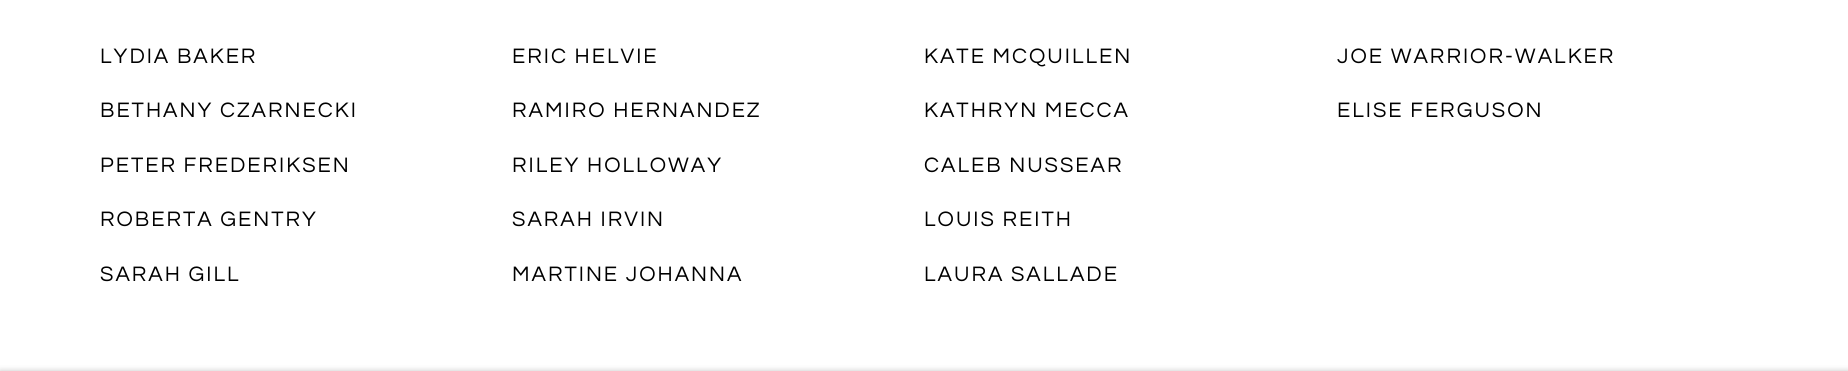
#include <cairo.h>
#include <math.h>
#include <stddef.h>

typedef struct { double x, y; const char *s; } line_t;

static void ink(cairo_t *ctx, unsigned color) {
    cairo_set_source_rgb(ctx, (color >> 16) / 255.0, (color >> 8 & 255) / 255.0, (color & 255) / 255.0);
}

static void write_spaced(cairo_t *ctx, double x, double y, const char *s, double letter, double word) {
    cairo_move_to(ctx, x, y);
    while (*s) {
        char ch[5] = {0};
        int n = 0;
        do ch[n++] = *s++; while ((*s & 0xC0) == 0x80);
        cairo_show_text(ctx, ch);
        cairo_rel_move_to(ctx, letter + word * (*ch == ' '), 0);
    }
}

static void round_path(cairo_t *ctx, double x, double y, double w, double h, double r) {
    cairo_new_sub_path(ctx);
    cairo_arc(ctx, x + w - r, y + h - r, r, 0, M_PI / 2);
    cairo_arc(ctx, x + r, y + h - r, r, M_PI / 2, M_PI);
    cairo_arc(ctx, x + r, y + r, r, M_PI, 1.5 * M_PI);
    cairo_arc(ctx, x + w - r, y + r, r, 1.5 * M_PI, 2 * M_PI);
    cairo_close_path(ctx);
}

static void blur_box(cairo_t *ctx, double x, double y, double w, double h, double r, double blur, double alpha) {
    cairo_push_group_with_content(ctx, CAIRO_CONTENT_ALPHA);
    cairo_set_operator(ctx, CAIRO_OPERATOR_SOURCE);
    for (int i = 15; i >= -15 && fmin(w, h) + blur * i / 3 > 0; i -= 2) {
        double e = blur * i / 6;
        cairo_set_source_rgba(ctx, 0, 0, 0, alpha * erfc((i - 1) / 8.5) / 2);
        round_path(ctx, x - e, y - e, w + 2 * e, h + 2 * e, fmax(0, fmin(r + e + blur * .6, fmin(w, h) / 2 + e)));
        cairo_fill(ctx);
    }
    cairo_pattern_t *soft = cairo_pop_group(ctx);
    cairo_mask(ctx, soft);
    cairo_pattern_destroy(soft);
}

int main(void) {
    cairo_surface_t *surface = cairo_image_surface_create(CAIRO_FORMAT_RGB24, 1848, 371);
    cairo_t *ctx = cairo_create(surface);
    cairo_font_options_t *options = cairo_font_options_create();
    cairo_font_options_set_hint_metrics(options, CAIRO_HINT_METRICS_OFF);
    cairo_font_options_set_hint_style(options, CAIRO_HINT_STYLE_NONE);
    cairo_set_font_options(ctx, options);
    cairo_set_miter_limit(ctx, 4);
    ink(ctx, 0xFFFFFF);
    cairo_paint(ctx);
    cairo_select_font_face(ctx, "Questrial", CAIRO_FONT_SLANT_NORMAL, CAIRO_FONT_WEIGHT_NORMAL);
    cairo_set_font_size(ctx, 21.75);
    ink(ctx, 0x000000);
    {
        static const line_t items[] = {
            {100, 63, "LYDIA BAKER"},
            {100, 117, "BETHANY CZARNECKI"},
            {100, 172, "PETER FREDERIKSEN"},
            {100, 226, "ROBERTA GENTRY"},
            {100, 281, "SARAH GILL"},
            {512, 63, "ERIC HELVIE"},
            {512, 117, "RAMIRO HERNANDEZ"},
            {512, 172, "RILEY HOLLOWAY"},
            {512, 226, "SARAH IRVIN"},
            {512, 281, "MARTINE JOHANNA"},
            {924, 63, "KATE MCQUILLEN"},
            {924, 117, "KATHRYN MECCA"},
            {924, 172, "CALEB NUSSEAR"},
            {924, 226, "LOUIS REITH"},
            {924, 281, "LAURA SALLADE"},
            {1337, 63, "JOE WARRIOR-WALKER"},
            {1337, 117, "ELISE FERGUSON"},
        };
        for (size_t i = 0; i < sizeof items / sizeof *items; i++) {
            write_spaced(ctx, items[i].x, items[i].y, items[i].s, 2, 0);
        }
    }
    ink(ctx, 0x000000);
    blur_box(ctx, 0, 371, 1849, 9, 0, 3, 0.23);
    cairo_surface_write_to_png(surface, "image.png");
    cairo_font_options_destroy(options);
    cairo_destroy(ctx);
    cairo_surface_destroy(surface);
    return 0;
}
